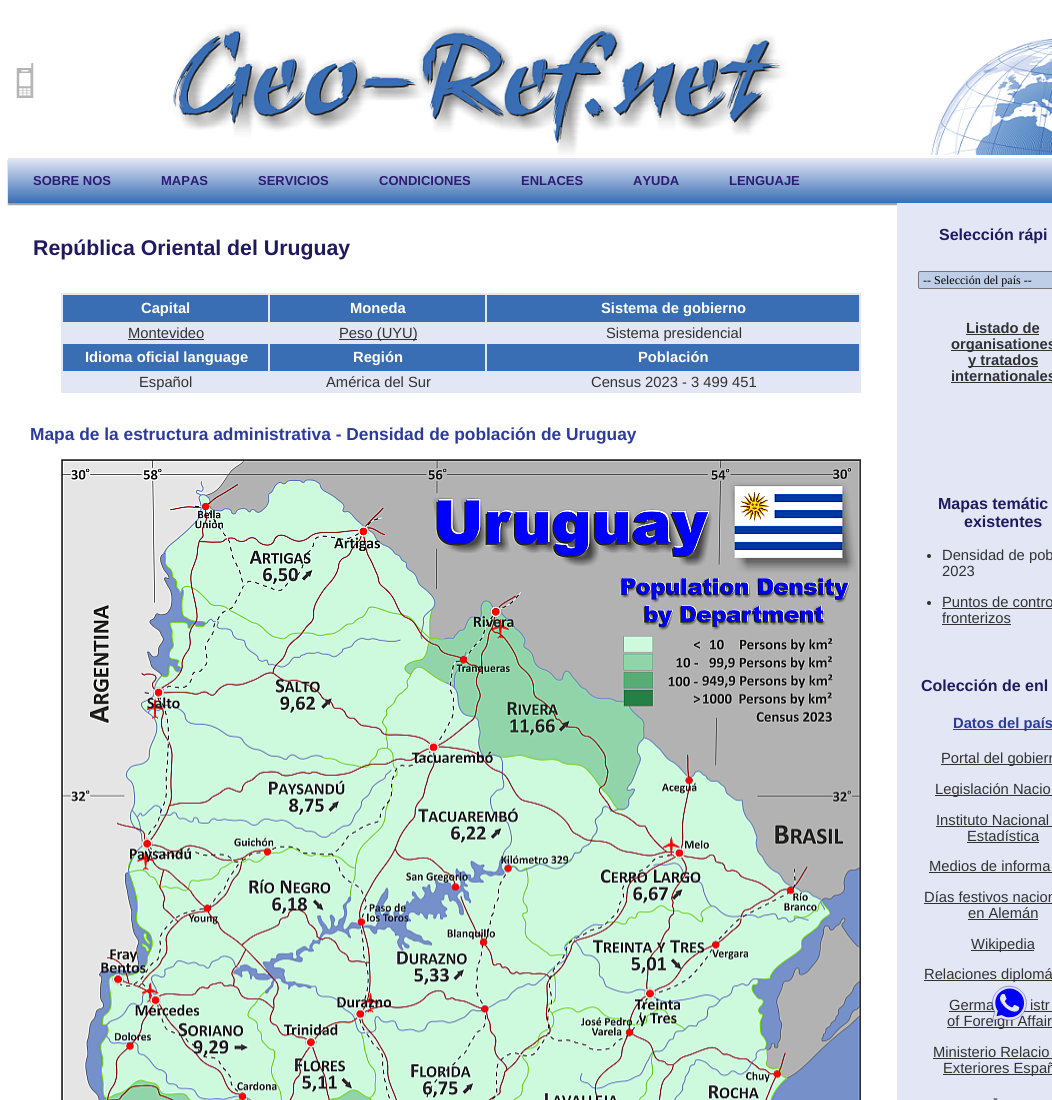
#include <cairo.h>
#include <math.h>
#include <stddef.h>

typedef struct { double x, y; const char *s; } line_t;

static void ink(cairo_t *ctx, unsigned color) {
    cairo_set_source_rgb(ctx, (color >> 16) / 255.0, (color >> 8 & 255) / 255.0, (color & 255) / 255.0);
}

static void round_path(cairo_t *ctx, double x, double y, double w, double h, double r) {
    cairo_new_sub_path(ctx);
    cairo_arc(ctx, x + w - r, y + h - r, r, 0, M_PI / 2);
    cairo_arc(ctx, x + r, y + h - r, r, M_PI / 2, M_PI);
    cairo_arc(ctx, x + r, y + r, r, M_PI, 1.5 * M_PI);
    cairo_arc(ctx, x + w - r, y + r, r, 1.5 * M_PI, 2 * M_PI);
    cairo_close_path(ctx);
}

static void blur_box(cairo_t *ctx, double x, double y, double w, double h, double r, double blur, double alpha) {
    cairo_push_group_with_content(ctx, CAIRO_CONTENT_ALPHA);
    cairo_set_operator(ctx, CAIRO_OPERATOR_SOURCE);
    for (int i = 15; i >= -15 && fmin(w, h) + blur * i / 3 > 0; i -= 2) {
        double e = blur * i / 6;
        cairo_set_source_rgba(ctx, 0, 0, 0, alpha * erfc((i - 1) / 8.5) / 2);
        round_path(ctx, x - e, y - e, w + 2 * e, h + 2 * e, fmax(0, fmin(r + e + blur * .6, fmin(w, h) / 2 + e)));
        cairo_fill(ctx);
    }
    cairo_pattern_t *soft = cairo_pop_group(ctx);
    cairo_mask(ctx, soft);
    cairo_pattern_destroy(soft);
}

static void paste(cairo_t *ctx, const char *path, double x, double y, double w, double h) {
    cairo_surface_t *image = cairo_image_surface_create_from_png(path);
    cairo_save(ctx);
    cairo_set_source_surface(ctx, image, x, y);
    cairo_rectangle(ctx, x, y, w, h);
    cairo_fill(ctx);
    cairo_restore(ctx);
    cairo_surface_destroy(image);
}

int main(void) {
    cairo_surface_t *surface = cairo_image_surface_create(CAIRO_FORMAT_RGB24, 1052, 1100);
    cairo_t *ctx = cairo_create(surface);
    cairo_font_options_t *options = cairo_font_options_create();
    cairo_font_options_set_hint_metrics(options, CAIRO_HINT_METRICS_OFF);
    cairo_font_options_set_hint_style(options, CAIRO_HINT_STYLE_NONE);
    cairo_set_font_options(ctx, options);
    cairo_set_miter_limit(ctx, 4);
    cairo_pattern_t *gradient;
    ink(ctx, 0xFFFFFF);
    cairo_paint(ctx);
    paste(ctx, "media/1.png", 16, 63, 18, 35);
    paste(ctx, "media/2.png", 173, 24, 879, 131);
    ink(ctx, 0x9C9C9C);
    blur_box(ctx, 8, 160, 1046, 45, 0, 0.5, 1);
    gradient = cairo_pattern_create_linear(558, 158, 558, 203);
    cairo_pattern_add_color_stop_rgba(gradient, 0, 0.89, 0.906, 0.961, 1);
    cairo_pattern_add_color_stop_rgba(gradient, 1, 0.224, 0.431, 0.706, 1);
    cairo_set_source(ctx, gradient);
    cairo_pattern_destroy(gradient);
    cairo_rectangle(ctx, 8, 158, 1044, 45);
    cairo_fill(ctx);
    cairo_select_font_face(ctx, "Liberation Sans", CAIRO_FONT_SLANT_NORMAL, CAIRO_FONT_WEIGHT_BOLD);
    cairo_set_font_size(ctx, 13);
    ink(ctx, 0x2D1C74);
    {
        static const line_t items[] = {
            {33, 185, "SOBRE NOS"},
            {161, 185, "MAPAS"},
            {258, 185, "SERVICIOS"},
            {379, 185, "CONDICIONES"},
            {521, 185, "ENLACES"},
            {633, 185, "AYUDA"},
            {729, 185, "LENGUAJE"},
        };
        for (size_t i = 0; i < sizeof items / sizeof *items; i++) {
            cairo_move_to(ctx, items[i].x, items[i].y);
            cairo_show_text(ctx, items[i].s);
        }
    }
    cairo_set_font_size(ctx, 21.3);
    ink(ctx, 0x1F1A60);
    cairo_move_to(ctx, 33, 255);
    cairo_show_text(ctx, "República Oriental del Uruguay");
    ink(ctx, 0xE3E7F5);
    cairo_rectangle(ctx, 61, 293, 800, 100);
    cairo_fill(ctx);
    ink(ctx, 0x396EB4);
    cairo_rectangle(ctx, 63, 295, 205, 27);
    cairo_fill(ctx);
    cairo_set_font_size(ctx, 14.75);
    ink(ctx, 0xFFFFFF);
    cairo_move_to(ctx, 141, 313);
    cairo_show_text(ctx, "Capital");
    ink(ctx, 0x396EB4);
    cairo_rectangle(ctx, 270, 295, 215, 27);
    cairo_fill(ctx);
    ink(ctx, 0xFFFFFF);
    cairo_move_to(ctx, 350, 313);
    cairo_show_text(ctx, "Moneda");
    ink(ctx, 0x396EB4);
    cairo_rectangle(ctx, 487, 295, 372, 27);
    cairo_fill(ctx);
    ink(ctx, 0xFFFFFF);
    cairo_move_to(ctx, 601, 313);
    cairo_show_text(ctx, "Sistema de gobierno");
    cairo_select_font_face(ctx, "Liberation Sans", CAIRO_FONT_SLANT_NORMAL, CAIRO_FONT_WEIGHT_NORMAL);
    ink(ctx, 0x313130);
    cairo_move_to(ctx, 128, 338);
    cairo_show_text(ctx, "Montevideo");
    cairo_rectangle(ctx, 128, 339, 76, 1);
    cairo_fill(ctx);
    cairo_rectangle(ctx, 339, 339, 78, 1);
    cairo_fill(ctx);
    cairo_move_to(ctx, 339, 338);
    cairo_show_text(ctx, "Peso (UYU)");
    cairo_move_to(ctx, 606, 338);
    cairo_show_text(ctx, "Sistema presidencial");
    ink(ctx, 0x396EB4);
    cairo_rectangle(ctx, 63, 344, 205, 27);
    cairo_fill(ctx);
    cairo_select_font_face(ctx, "Liberation Sans", CAIRO_FONT_SLANT_NORMAL, CAIRO_FONT_WEIGHT_BOLD);
    ink(ctx, 0xFFFFFF);
    cairo_move_to(ctx, 85, 362);
    cairo_show_text(ctx, "Idioma oficial language");
    ink(ctx, 0x396EB4);
    cairo_rectangle(ctx, 270, 344, 215, 27);
    cairo_fill(ctx);
    ink(ctx, 0xFFFFFF);
    cairo_move_to(ctx, 353, 362);
    cairo_show_text(ctx, "Región");
    ink(ctx, 0x396EB4);
    cairo_rectangle(ctx, 487, 344, 372, 27);
    cairo_fill(ctx);
    ink(ctx, 0xFFFFFF);
    cairo_move_to(ctx, 638, 362);
    cairo_show_text(ctx, "Población");
    cairo_select_font_face(ctx, "Liberation Sans", CAIRO_FONT_SLANT_NORMAL, CAIRO_FONT_WEIGHT_NORMAL);
    ink(ctx, 0x313130);
    {
        static const line_t items[] = {
            {139, 387, "Español"},
            {326, 387, "América del Sur"},
            {591, 387, "Census 2023 - 3 499 451"},
        };
        for (size_t i = 0; i < sizeof items / sizeof *items; i++) {
            cairo_move_to(ctx, items[i].x, items[i].y);
            cairo_show_text(ctx, items[i].s);
        }
    }
    cairo_select_font_face(ctx, "Liberation Sans", CAIRO_FONT_SLANT_NORMAL, CAIRO_FONT_WEIGHT_BOLD);
    cairo_set_font_size(ctx, 17.35);
    ink(ctx, 0x2B3B9E);
    cairo_move_to(ctx, 30, 440);
    cairo_show_text(ctx, "Mapa de la estructura administrativa - Densidad de población de Uruguay");
    paste(ctx, "media/3.png", 61, 459, 800, 641);
    ink(ctx, 0xE3E7F5);
    cairo_rectangle(ctx, 897, 203, 155, 897);
    cairo_fill(ctx);
    cairo_set_font_size(ctx, 16);
    ink(ctx, 0x1F1A60);
    cairo_move_to(ctx, 939, 240);
    cairo_show_text(ctx, "Selección rápi");
    ink(ctx, 0xBFCEE7);
    round_path(ctx, 918.5, 271.5, 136, 17, 1.5);
    cairo_fill_preserve(ctx);
    ink(ctx, 0x767676);
    cairo_set_line_width(ctx, 1);
    cairo_stroke(ctx);
    cairo_select_font_face(ctx, "Liberation Serif", CAIRO_FONT_SLANT_NORMAL, CAIRO_FONT_WEIGHT_NORMAL);
    cairo_set_font_size(ctx, 12);
    ink(ctx, 0x000000);
    cairo_move_to(ctx, 923, 284);
    cairo_show_text(ctx, "-- Selección del país --");
    cairo_select_font_face(ctx, "Liberation Sans", CAIRO_FONT_SLANT_NORMAL, CAIRO_FONT_WEIGHT_BOLD);
    cairo_set_font_size(ctx, 14.75);
    ink(ctx, 0x313130);
    cairo_move_to(ctx, 966, 333);
    cairo_show_text(ctx, "Listado de");
    cairo_rectangle(ctx, 966, 334, 73, 1);
    cairo_fill(ctx);
    cairo_rectangle(ctx, 951, 350, 101, 1);
    cairo_fill(ctx);
    cairo_move_to(ctx, 951, 349);
    cairo_show_text(ctx, "organisationes");
    cairo_rectangle(ctx, 968, 366, 70, 1);
    cairo_fill(ctx);
    cairo_move_to(ctx, 968, 365);
    cairo_show_text(ctx, "y tratados");
    cairo_move_to(ctx, 951, 381);
    cairo_show_text(ctx, "internationales");
    cairo_rectangle(ctx, 951, 382, 101, 1);
    cairo_fill(ctx);
    cairo_set_font_size(ctx, 16);
    ink(ctx, 0x1F1A60);
    cairo_move_to(ctx, 938, 509);
    cairo_show_text(ctx, "Mapas temátic");
    cairo_move_to(ctx, 964, 527);
    cairo_show_text(ctx, "existentes");
    ink(ctx, 0x313130);
    cairo_new_path(ctx);
    cairo_arc(ctx, 929, 556, 2, 0, 2 * M_PI);
    cairo_fill(ctx);
    cairo_select_font_face(ctx, "Liberation Sans", CAIRO_FONT_SLANT_NORMAL, CAIRO_FONT_WEIGHT_NORMAL);
    cairo_set_font_size(ctx, 14.75);
    cairo_move_to(ctx, 942, 560);
    cairo_show_text(ctx, "Densidad de pob");
    cairo_move_to(ctx, 942, 576);
    cairo_show_text(ctx, "2023");
    cairo_new_path(ctx);
    cairo_arc(ctx, 929, 603, 2, 0, 2 * M_PI);
    cairo_fill(ctx);
    cairo_move_to(ctx, 942, 607);
    cairo_show_text(ctx, "Puntos de contro");
    cairo_rectangle(ctx, 942, 608, 110, 1);
    cairo_fill(ctx);
    cairo_move_to(ctx, 942, 623);
    cairo_show_text(ctx, "fronterizos");
    cairo_rectangle(ctx, 942, 624, 69, 1);
    cairo_fill(ctx);
    cairo_select_font_face(ctx, "Liberation Sans", CAIRO_FONT_SLANT_NORMAL, CAIRO_FONT_WEIGHT_BOLD);
    cairo_set_font_size(ctx, 16);
    ink(ctx, 0x1F1A60);
    cairo_move_to(ctx, 921, 691);
    cairo_show_text(ctx, "Colección de enl");
    ink(ctx, 0x2B3B9E);
    cairo_rectangle(ctx, 953, 729, 99, 1);
    cairo_fill(ctx);
    cairo_set_font_size(ctx, 14.75);
    cairo_move_to(ctx, 953, 728);
    cairo_show_text(ctx, "Datos del país");
    ink(ctx, 0x313130);
    cairo_rectangle(ctx, 941, 764, 111, 1);
    cairo_fill(ctx);
    cairo_select_font_face(ctx, "Liberation Sans", CAIRO_FONT_SLANT_NORMAL, CAIRO_FONT_WEIGHT_NORMAL);
    cairo_move_to(ctx, 941, 763);
    cairo_show_text(ctx, "Portal del gobiern");
    cairo_rectangle(ctx, 935, 795, 117, 1);
    cairo_fill(ctx);
    cairo_move_to(ctx, 935, 794);
    cairo_show_text(ctx, "Legislación Nacio");
    cairo_move_to(ctx, 936, 825);
    cairo_show_text(ctx, "Instituto Nacional");
    cairo_rectangle(ctx, 936, 826, 116, 1);
    cairo_fill(ctx);
    cairo_move_to(ctx, 967, 841);
    cairo_show_text(ctx, "Estadística");
    cairo_rectangle(ctx, 967, 842, 72, 1);
    cairo_fill(ctx);
    cairo_move_to(ctx, 929, 871);
    cairo_show_text(ctx, "Medios de informa");
    cairo_rectangle(ctx, 929, 872, 123, 1);
    cairo_fill(ctx);
    cairo_move_to(ctx, 924, 902);
    cairo_show_text(ctx, "Días festivos nacion");
    cairo_rectangle(ctx, 924, 903, 128, 1);
    cairo_fill(ctx);
    cairo_move_to(ctx, 968, 918);
    cairo_show_text(ctx, "en Alemán");
    cairo_rectangle(ctx, 968, 919, 70, 1);
    cairo_fill(ctx);
    cairo_rectangle(ctx, 971, 950, 63, 1);
    cairo_fill(ctx);
    cairo_move_to(ctx, 971, 949);
    cairo_show_text(ctx, "Wikipedia");
    cairo_rectangle(ctx, 924, 980, 128, 1);
    cairo_fill(ctx);
    cairo_move_to(ctx, 924, 979);
    cairo_show_text(ctx, "Relaciones diplomá");
    cairo_move_to(ctx, 949, 1010);
    cairo_show_text(ctx, "Germa");
    cairo_rectangle(ctx, 949, 1011, 103, 1);
    cairo_fill(ctx);
    cairo_move_to(ctx, 1030, 1010);
    cairo_show_text(ctx, "istr");
    cairo_rectangle(ctx, 947, 1027, 105, 1);
    cairo_fill(ctx);
    cairo_move_to(ctx, 947, 1026);
    cairo_show_text(ctx, "of Foreign Affair");
    cairo_move_to(ctx, 933, 1057);
    cairo_show_text(ctx, "Ministerio Relacio");
    cairo_rectangle(ctx, 933, 1058, 119, 1);
    cairo_fill(ctx);
    cairo_rectangle(ctx, 943, 1074, 109, 1);
    cairo_fill(ctx);
    cairo_move_to(ctx, 943, 1073);
    cairo_show_text(ctx, "Exteriores Españ");
    cairo_move_to(ctx, 993, 1103);
    cairo_show_text(ctx, "-");
    paste(ctx, "media/4.png", 992, 985, 35, 36);
    cairo_surface_write_to_png(surface, "image.png");
    cairo_font_options_destroy(options);
    cairo_destroy(ctx);
    cairo_surface_destroy(surface);
    return 0;
}
